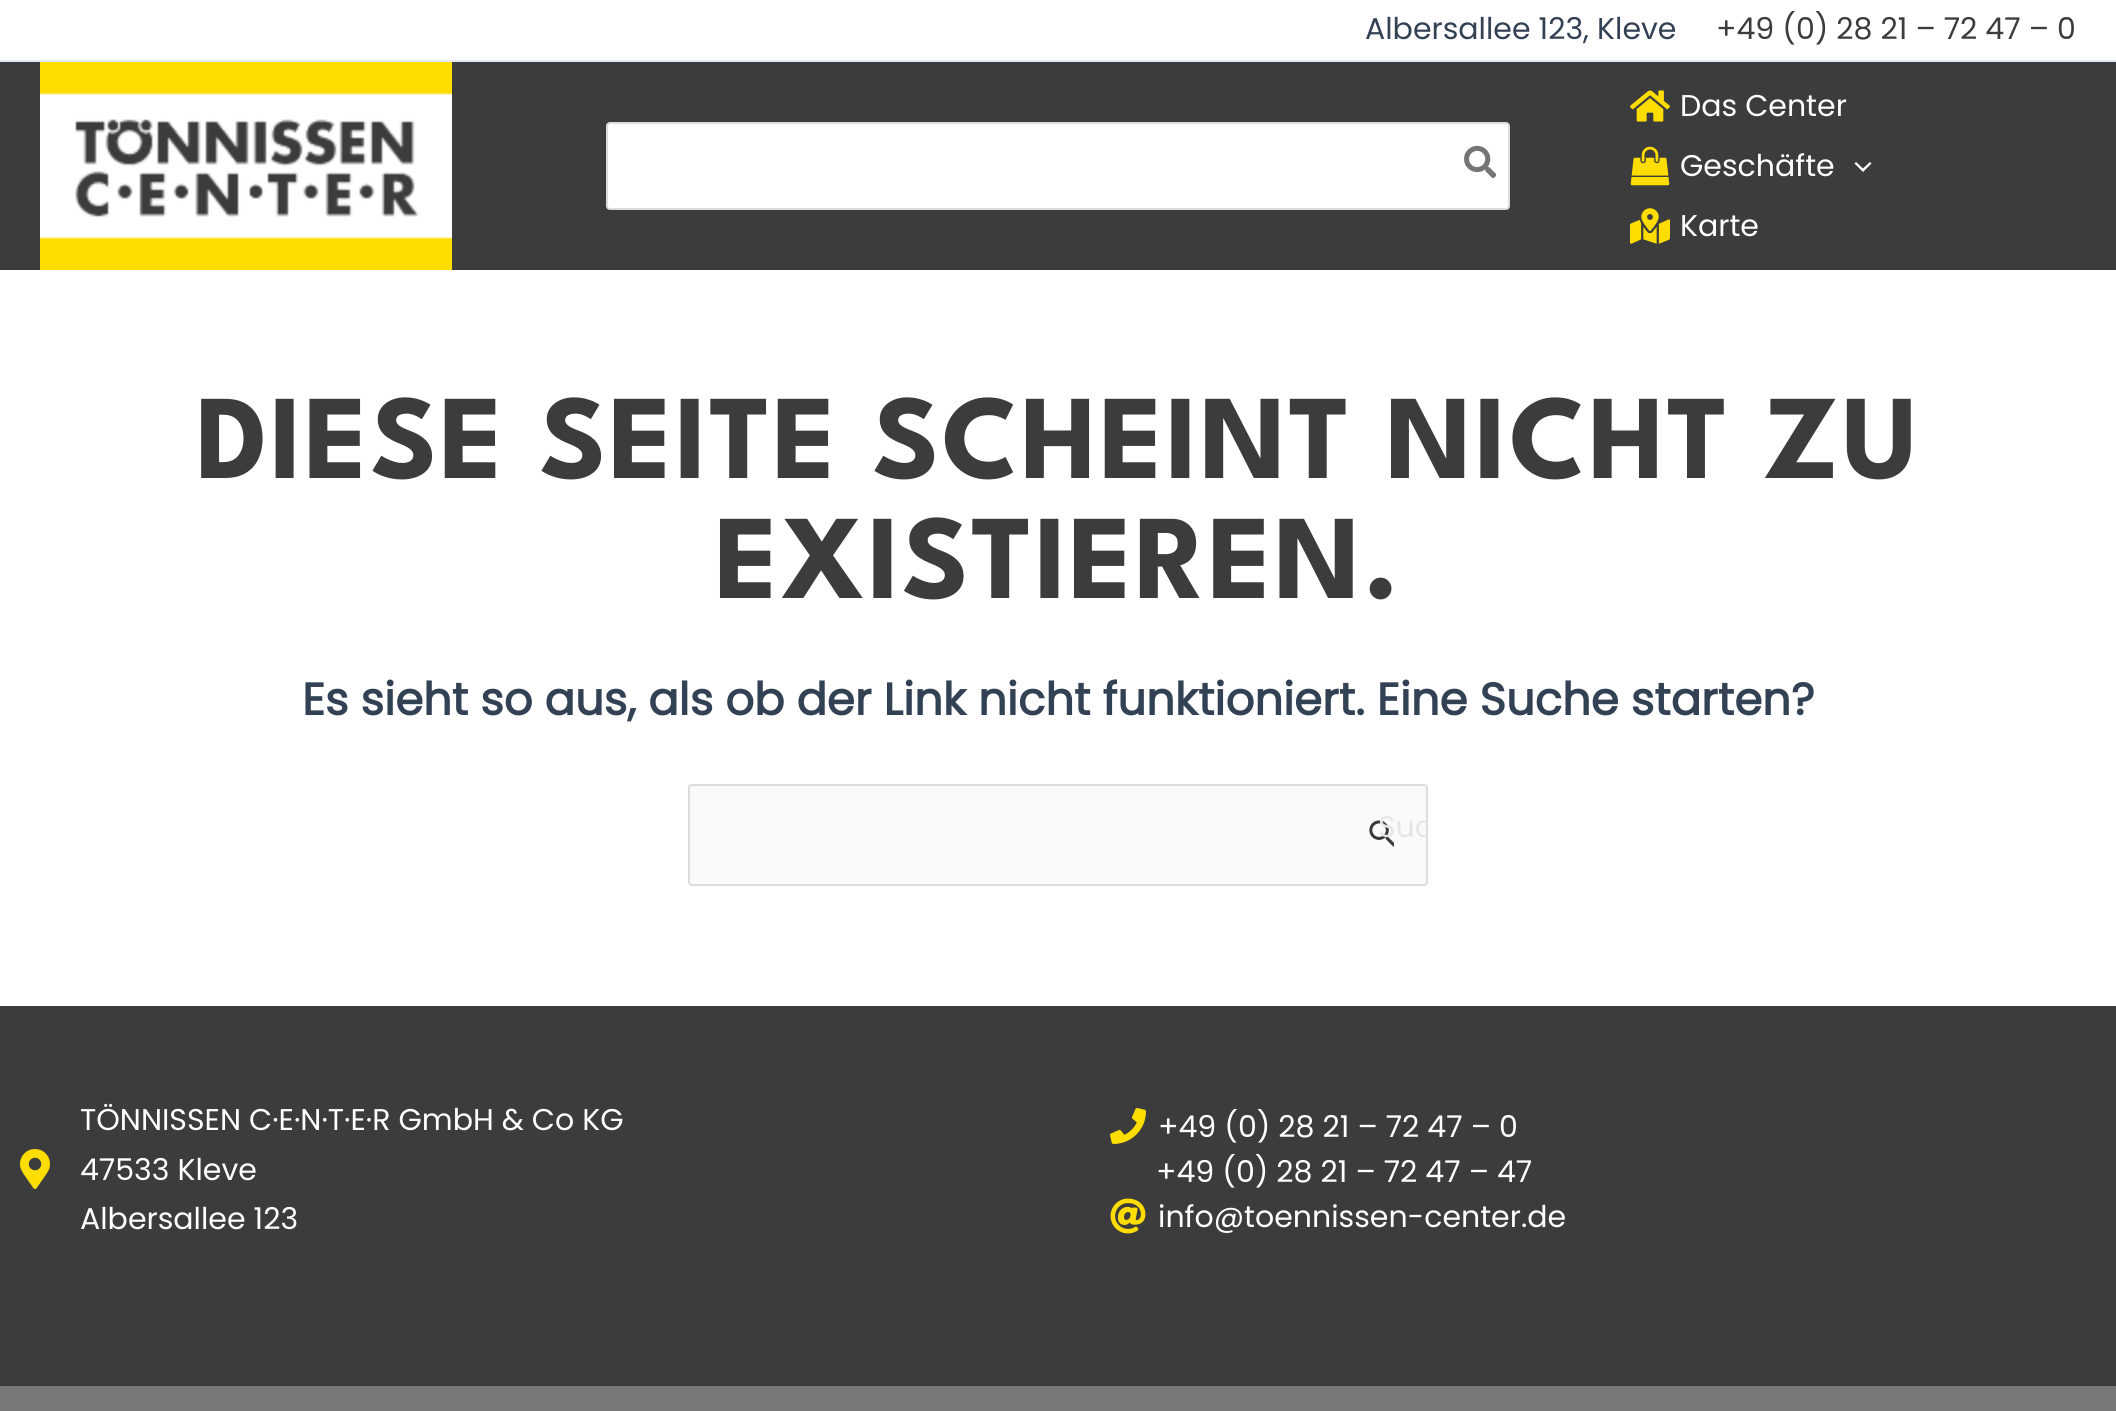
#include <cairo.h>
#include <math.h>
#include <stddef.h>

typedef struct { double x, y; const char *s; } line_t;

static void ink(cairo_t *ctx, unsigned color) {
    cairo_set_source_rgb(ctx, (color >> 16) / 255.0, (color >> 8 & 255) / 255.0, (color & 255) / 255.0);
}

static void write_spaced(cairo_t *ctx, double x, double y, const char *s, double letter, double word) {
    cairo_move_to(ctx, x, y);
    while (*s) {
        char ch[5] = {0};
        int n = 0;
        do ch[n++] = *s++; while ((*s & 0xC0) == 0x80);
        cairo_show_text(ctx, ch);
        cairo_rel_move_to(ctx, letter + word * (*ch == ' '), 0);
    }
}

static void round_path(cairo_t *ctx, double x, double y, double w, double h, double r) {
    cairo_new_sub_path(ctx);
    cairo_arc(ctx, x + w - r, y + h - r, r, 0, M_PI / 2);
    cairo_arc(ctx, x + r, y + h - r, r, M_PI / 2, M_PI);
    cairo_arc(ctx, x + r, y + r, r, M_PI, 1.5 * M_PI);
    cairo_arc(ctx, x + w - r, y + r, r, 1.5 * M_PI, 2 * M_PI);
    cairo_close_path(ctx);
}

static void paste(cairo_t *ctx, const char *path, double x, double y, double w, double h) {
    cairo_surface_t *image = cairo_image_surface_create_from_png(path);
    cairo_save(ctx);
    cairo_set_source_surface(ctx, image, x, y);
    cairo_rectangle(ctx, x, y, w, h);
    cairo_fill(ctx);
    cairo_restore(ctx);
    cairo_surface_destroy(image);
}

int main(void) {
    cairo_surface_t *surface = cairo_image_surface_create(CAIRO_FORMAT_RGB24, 2116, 1411);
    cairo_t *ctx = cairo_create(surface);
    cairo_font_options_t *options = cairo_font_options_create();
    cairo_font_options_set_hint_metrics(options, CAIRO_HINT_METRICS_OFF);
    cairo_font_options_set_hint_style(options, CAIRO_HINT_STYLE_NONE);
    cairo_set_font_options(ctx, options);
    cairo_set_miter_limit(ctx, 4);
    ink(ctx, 0xFFFFFF);
    cairo_paint(ctx);
    ink(ctx, 0xE2E8F0);
    cairo_rectangle(ctx, 0, 60, 2116, 2);
    cairo_fill(ctx);
    cairo_select_font_face(ctx, "Poppins", CAIRO_FONT_SLANT_NORMAL, CAIRO_FONT_WEIGHT_NORMAL);
    cairo_set_font_size(ctx, 30);
    ink(ctx, 0x334155);
    cairo_move_to(ctx, 1365, 39);
    cairo_show_text(ctx, "Albersallee 123, Kleve");
    ink(ctx, 0x3C3C3C);
    cairo_move_to(ctx, 1716, 39);
    cairo_show_text(ctx, "+49 (0) 28 21 – 72 47 – 0");
    cairo_rectangle(ctx, 0, 62, 2116, 208);
    cairo_fill(ctx);
    paste(ctx, "media/1.png", 40, 62, 412, 208);
    ink(ctx, 0xFFFFFF);
    round_path(ctx, 607, 123, 902, 86, 3);
    cairo_fill_preserve(ctx);
    ink(ctx, 0xDDDDDD);
    cairo_stroke(ctx);
    paste(ctx, "media/2.png", 1464, 145, 32, 34);
    paste(ctx, "media/3.png", 1630, 90, 40, 32);
    ink(ctx, 0xFFFFFF);
    cairo_move_to(ctx, 1680, 116);
    cairo_show_text(ctx, "Das Center");
    paste(ctx, "media/4.png", 1630, 146, 40, 40);
    cairo_move_to(ctx, 1680, 176);
    cairo_show_text(ctx, "Geschäfte");
    cairo_new_path(ctx);
    cairo_move_to(ctx, 1854.5, 163.5);
    cairo_line_to(ctx, 1863, 172);
    cairo_line_to(ctx, 1871.5, 163.5);
    cairo_line_to(ctx, 1870, 162);
    cairo_line_to(ctx, 1863, 168.5);
    cairo_line_to(ctx, 1856, 162);
    cairo_close_path(ctx);
    cairo_fill(ctx);
    paste(ctx, "media/5.png", 1630, 208, 40, 36);
    cairo_move_to(ctx, 1680, 236);
    cairo_show_text(ctx, "Karte");
    cairo_select_font_face(ctx, "League Spartan Thin", CAIRO_FONT_SLANT_NORMAL, CAIRO_FONT_WEIGHT_NORMAL);
    cairo_set_font_size(ctx, 120);
    ink(ctx, 0x3C3C3C);
    write_spaced(ctx, 196, 478, "DIESE SEITE SCHEINT NICHT ZU", 2, 0);
    write_spaced(ctx, 715, 598, "EXISTIEREN.", 2, 0);
    cairo_select_font_face(ctx, "Poppins", CAIRO_FONT_SLANT_NORMAL, CAIRO_FONT_WEIGHT_BOLD);
    cairo_set_font_size(ctx, 45);
    ink(ctx, 0x334155);
    cairo_move_to(ctx, 302, 715);
    cairo_show_text(ctx, "Es sieht so aus, als ob der Link nicht funktioniert. Eine Suche starten?");
    ink(ctx, 0xFAFAFA);
    round_path(ctx, 689, 785, 738, 100, 3);
    cairo_fill_preserve(ctx);
    ink(ctx, 0xDDDDDD);
    cairo_stroke(ctx);
    paste(ctx, "media/6.png", 1369, 820, 25, 27);
    cairo_save(ctx);
    round_path(ctx, 1338, 784, 90, 82, 4);
    cairo_clip(ctx);
    cairo_select_font_face(ctx, "Poppins", CAIRO_FONT_SLANT_NORMAL, CAIRO_FONT_WEIGHT_NORMAL);
    cairo_set_font_size(ctx, 30);
    ink(ctx, 0xE6E6E6);
    cairo_move_to(ctx, 1378, 837);
    cairo_show_text(ctx, "Suc");
    cairo_restore(ctx);
    ink(ctx, 0x3C3C3C);
    cairo_rectangle(ctx, 0, 1006, 2116, 380);
    cairo_fill(ctx);
    paste(ctx, "media/7.png", 20, 1149, 30, 40);
    cairo_select_font_face(ctx, "Poppins", CAIRO_FONT_SLANT_NORMAL, CAIRO_FONT_WEIGHT_NORMAL);
    cairo_set_font_size(ctx, 30);
    ink(ctx, 0xFFFFFF);
    {
        static const line_t items[] = {
            {80, 1130, "TÖNNISSEN C·E·N·T·E·R GmbH & Co KG"},
            {80, 1180, "47533 Kleve"},
            {80, 1229, "Albersallee 123"},
        };
        for (size_t i = 0; i < sizeof items / sizeof *items; i++) {
            cairo_move_to(ctx, items[i].x, items[i].y);
            cairo_show_text(ctx, items[i].s);
        }
    }
    paste(ctx, "media/8.png", 1110, 1108, 36, 36);
    cairo_move_to(ctx, 1158, 1137);
    cairo_show_text(ctx, "+49 (0) 28 21 – 72 47 – 0");
    cairo_move_to(ctx, 1156, 1182);
    cairo_show_text(ctx, "+49 (0) 28 21 – 72 47 – 47");
    paste(ctx, "media/9.png", 1110, 1198, 36, 36);
    cairo_move_to(ctx, 1158, 1227);
    cairo_show_text(ctx, "info@toennissen-center.de");
    ink(ctx, 0x787878);
    cairo_rectangle(ctx, 0, 1386, 2116, 25);
    cairo_fill(ctx);
    cairo_surface_write_to_png(surface, "image.png");
    cairo_font_options_destroy(options);
    cairo_destroy(ctx);
    cairo_surface_destroy(surface);
    return 0;
}
